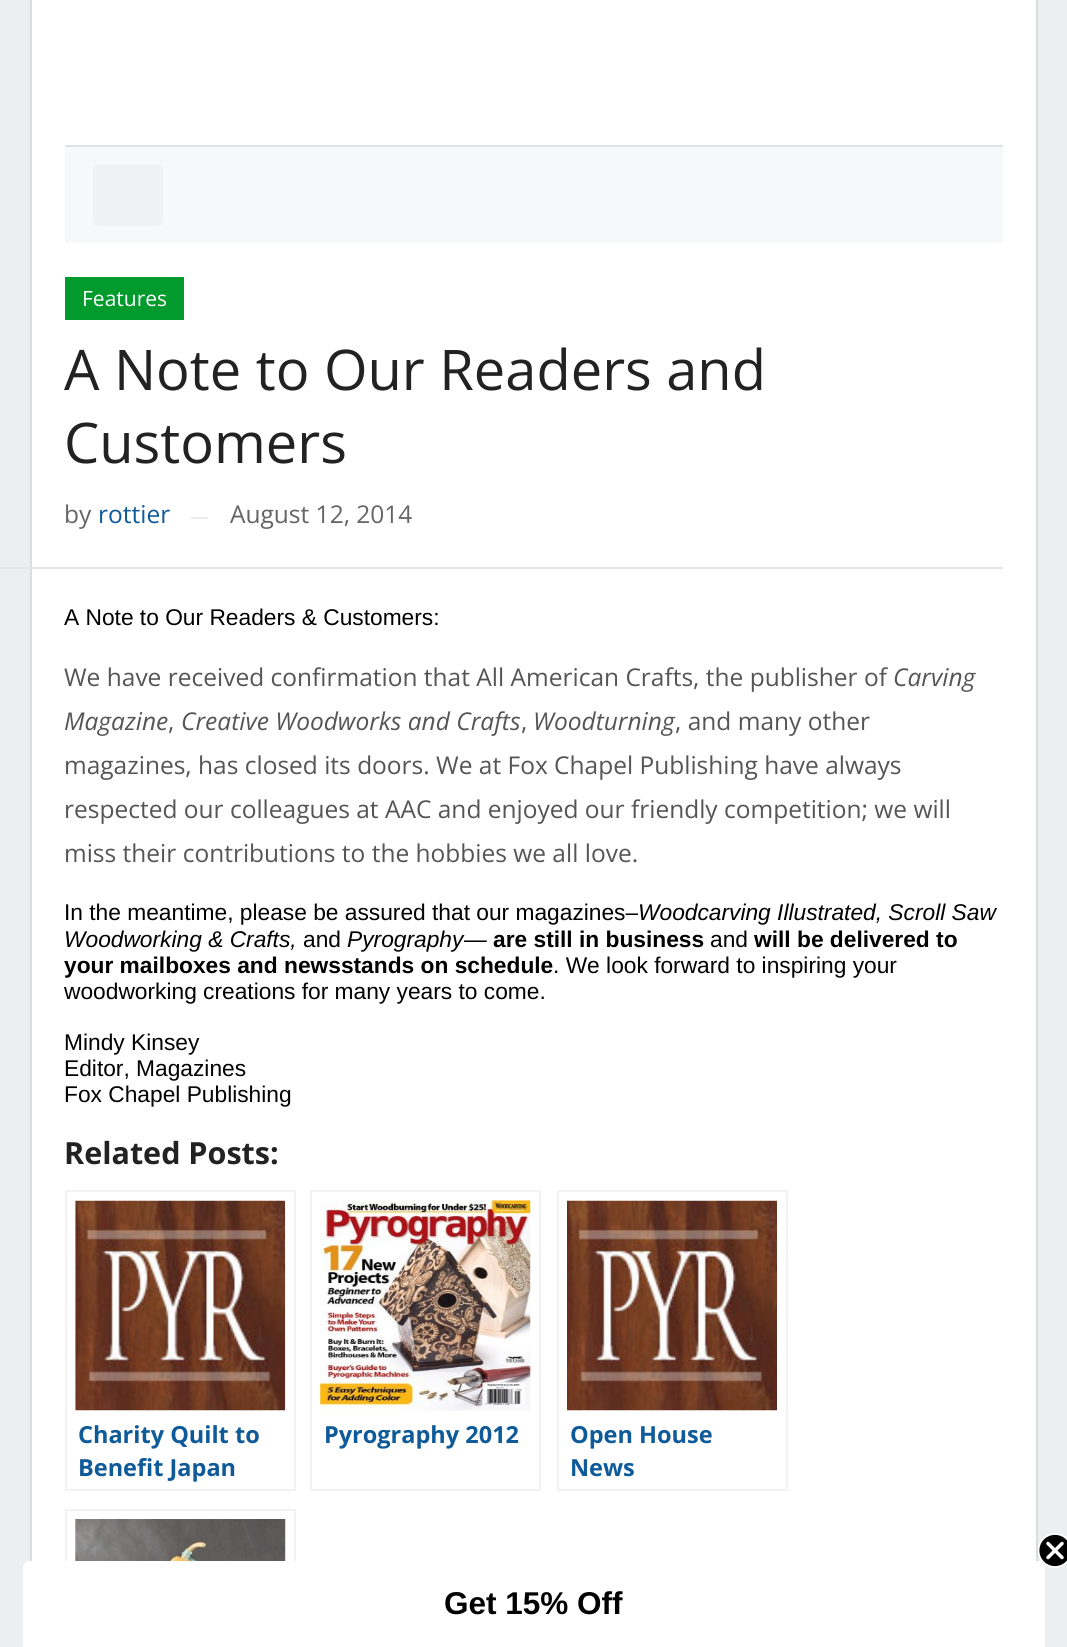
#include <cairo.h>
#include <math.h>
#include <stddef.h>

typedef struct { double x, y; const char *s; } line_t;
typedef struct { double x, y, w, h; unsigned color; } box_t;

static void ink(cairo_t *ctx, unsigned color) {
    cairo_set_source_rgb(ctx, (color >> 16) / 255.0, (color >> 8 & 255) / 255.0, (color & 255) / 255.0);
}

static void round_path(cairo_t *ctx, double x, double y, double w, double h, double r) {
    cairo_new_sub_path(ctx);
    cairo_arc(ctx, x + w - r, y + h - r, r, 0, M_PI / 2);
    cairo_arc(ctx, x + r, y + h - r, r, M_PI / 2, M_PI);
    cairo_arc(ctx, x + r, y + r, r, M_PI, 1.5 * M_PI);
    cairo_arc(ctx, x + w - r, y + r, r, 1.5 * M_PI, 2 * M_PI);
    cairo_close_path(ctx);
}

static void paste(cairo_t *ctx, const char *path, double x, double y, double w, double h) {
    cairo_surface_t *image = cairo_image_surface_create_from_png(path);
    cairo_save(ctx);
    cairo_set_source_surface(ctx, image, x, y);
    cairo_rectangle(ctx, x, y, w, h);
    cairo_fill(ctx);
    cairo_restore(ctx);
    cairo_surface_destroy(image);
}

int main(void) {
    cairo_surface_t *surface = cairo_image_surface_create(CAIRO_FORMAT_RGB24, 1067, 1647);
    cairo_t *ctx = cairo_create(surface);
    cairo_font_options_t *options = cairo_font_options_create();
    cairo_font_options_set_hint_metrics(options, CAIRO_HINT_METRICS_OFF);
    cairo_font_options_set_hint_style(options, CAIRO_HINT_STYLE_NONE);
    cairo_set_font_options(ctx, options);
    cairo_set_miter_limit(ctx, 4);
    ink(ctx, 0xEBEFF0);
    cairo_paint(ctx);
    {
        static const box_t items[] = {
            {32, 0, 1004, 1561, 0xFFFFFF},
            {1036, 0, 2, 1561, 0xDADEDF},
            {30, 0, 2, 1561, 0xDADEDF},
            {65, 147, 938, 96, 0xF7F8F9},
            {65, 145, 938, 2, 0xDFE2E3},
        };
        for (size_t i = 0; i < sizeof items / sizeof *items; i++) {
            ink(ctx, items[i].color);
            cairo_rectangle(ctx, items[i].x, items[i].y, items[i].w, items[i].h);
            cairo_fill(ctx);
        }
    }
    ink(ctx, 0xEEF2F2);
    round_path(ctx, 93, 165, 70, 61, 5);
    cairo_fill(ctx);
    ink(ctx, 0x009B2C);
    cairo_rectangle(ctx, 65, 277, 119, 43);
    cairo_fill(ctx);
    cairo_select_font_face(ctx, "Open Sans", CAIRO_FONT_SLANT_NORMAL, CAIRO_FONT_WEIGHT_NORMAL);
    cairo_set_font_size(ctx, 21);
    ink(ctx, 0xFFFFFF);
    cairo_move_to(ctx, 82, 306);
    cairo_show_text(ctx, "Features");
    cairo_set_font_size(ctx, 56);
    ink(ctx, 0x222222);
    cairo_move_to(ctx, 64, 390);
    cairo_show_text(ctx, "A Note to Our Readers and");
    cairo_move_to(ctx, 64, 463);
    cairo_show_text(ctx, "Customers");
    ink(ctx, 0xE5E5E5);
    cairo_rectangle(ctx, 0, 567, 1003, 2);
    cairo_fill(ctx);
    cairo_set_font_size(ctx, 24.5);
    ink(ctx, 0x656565);
    cairo_move_to(ctx, 64, 523);
    cairo_show_text(ctx, "by");
    ink(ctx, 0x0F5A99);
    cairo_move_to(ctx, 98, 523);
    cairo_show_text(ctx, "rottier");
    cairo_set_font_size(ctx, 19);
    ink(ctx, 0xE5E5E5);
    cairo_move_to(ctx, 190, 523);
    cairo_show_text(ctx, "—");
    cairo_set_font_size(ctx, 24.5);
    ink(ctx, 0x656565);
    cairo_move_to(ctx, 230, 523);
    cairo_show_text(ctx, "August 12, 2014");
    cairo_select_font_face(ctx, "Liberation Sans", CAIRO_FONT_SLANT_NORMAL, CAIRO_FONT_WEIGHT_NORMAL);
    cairo_set_font_size(ctx, 22.75);
    ink(ctx, 0x000000);
    cairo_move_to(ctx, 64, 625);
    cairo_show_text(ctx, "A Note to Our Readers & Customers:");
    cairo_select_font_face(ctx, "Open Sans", CAIRO_FONT_SLANT_NORMAL, CAIRO_FONT_WEIGHT_NORMAL);
    cairo_set_font_size(ctx, 24.5);
    ink(ctx, 0x555555);
    cairo_move_to(ctx, 64, 686);
    cairo_show_text(ctx, "We have received confirmation that All American Crafts, the publisher of");
    cairo_select_font_face(ctx, "Open Sans", CAIRO_FONT_SLANT_ITALIC, CAIRO_FONT_WEIGHT_NORMAL);
    cairo_move_to(ctx, 893, 686);
    cairo_show_text(ctx, "Carving");
    cairo_move_to(ctx, 64, 730);
    cairo_show_text(ctx, "Magazine");
    cairo_select_font_face(ctx, "Open Sans", CAIRO_FONT_SLANT_NORMAL, CAIRO_FONT_WEIGHT_NORMAL);
    cairo_move_to(ctx, 168, 730);
    cairo_show_text(ctx, ",");
    cairo_select_font_face(ctx, "Open Sans", CAIRO_FONT_SLANT_ITALIC, CAIRO_FONT_WEIGHT_NORMAL);
    cairo_move_to(ctx, 181, 730);
    cairo_show_text(ctx, "Creative Woodworks and Crafts");
    cairo_select_font_face(ctx, "Open Sans", CAIRO_FONT_SLANT_NORMAL, CAIRO_FONT_WEIGHT_NORMAL);
    cairo_move_to(ctx, 521, 730);
    cairo_show_text(ctx, ",");
    cairo_select_font_face(ctx, "Open Sans", CAIRO_FONT_SLANT_ITALIC, CAIRO_FONT_WEIGHT_NORMAL);
    cairo_move_to(ctx, 533, 730);
    cairo_show_text(ctx, "Woodturning");
    cairo_select_font_face(ctx, "Open Sans", CAIRO_FONT_SLANT_NORMAL, CAIRO_FONT_WEIGHT_NORMAL);
    {
        static const line_t items[] = {
            {675, 730, ", and many other"},
            {64, 774, "magazines, has closed its doors. We at Fox Chapel Publishing have always"},
            {64, 818, "respected our colleagues at AAC and enjoyed our friendly competition; we will"},
            {64, 862, "miss their contributions to the hobbies we all love."},
        };
        for (size_t i = 0; i < sizeof items / sizeof *items; i++) {
            cairo_move_to(ctx, items[i].x, items[i].y);
            cairo_show_text(ctx, items[i].s);
        }
    }
    cairo_select_font_face(ctx, "Liberation Sans", CAIRO_FONT_SLANT_NORMAL, CAIRO_FONT_WEIGHT_NORMAL);
    cairo_set_font_size(ctx, 22.75);
    ink(ctx, 0x000000);
    cairo_move_to(ctx, 64, 920);
    cairo_show_text(ctx, "In the meantime, please be assured that our magazines–");
    cairo_select_font_face(ctx, "Liberation Sans", CAIRO_FONT_SLANT_ITALIC, CAIRO_FONT_WEIGHT_NORMAL);
    cairo_move_to(ctx, 638, 920);
    cairo_show_text(ctx, "Woodcarving Illustrated, Scroll Saw");
    cairo_move_to(ctx, 64, 947);
    cairo_show_text(ctx, "Woodworking & Crafts,");
    cairo_select_font_face(ctx, "Liberation Sans", CAIRO_FONT_SLANT_NORMAL, CAIRO_FONT_WEIGHT_NORMAL);
    cairo_move_to(ctx, 303, 947);
    cairo_show_text(ctx, "and");
    cairo_select_font_face(ctx, "Liberation Sans", CAIRO_FONT_SLANT_ITALIC, CAIRO_FONT_WEIGHT_NORMAL);
    cairo_move_to(ctx, 347, 947);
    cairo_show_text(ctx, "Pyrography");
    cairo_select_font_face(ctx, "Liberation Sans", CAIRO_FONT_SLANT_NORMAL, CAIRO_FONT_WEIGHT_NORMAL);
    cairo_move_to(ctx, 464, 947);
    cairo_show_text(ctx, "—");
    cairo_select_font_face(ctx, "Liberation Sans", CAIRO_FONT_SLANT_NORMAL, CAIRO_FONT_WEIGHT_BOLD);
    cairo_move_to(ctx, 493, 947);
    cairo_show_text(ctx, "are still in business");
    cairo_select_font_face(ctx, "Liberation Sans", CAIRO_FONT_SLANT_NORMAL, CAIRO_FONT_WEIGHT_NORMAL);
    cairo_move_to(ctx, 710, 947);
    cairo_show_text(ctx, "and");
    cairo_select_font_face(ctx, "Liberation Sans", CAIRO_FONT_SLANT_NORMAL, CAIRO_FONT_WEIGHT_BOLD);
    cairo_move_to(ctx, 754, 947);
    cairo_show_text(ctx, "will be delivered to");
    cairo_move_to(ctx, 64, 973);
    cairo_show_text(ctx, "your mailboxes and newsstands on schedule");
    cairo_select_font_face(ctx, "Liberation Sans", CAIRO_FONT_SLANT_NORMAL, CAIRO_FONT_WEIGHT_NORMAL);
    {
        static const line_t items[] = {
            {553, 973, ". We look forward to inspiring your"},
            {64, 999, "woodworking creations for many years to come."},
            {64, 1050, "Mindy Kinsey"},
            {64, 1076, "Editor, Magazines"},
            {64, 1102, "Fox Chapel Publishing"},
        };
        for (size_t i = 0; i < sizeof items / sizeof *items; i++) {
            cairo_move_to(ctx, items[i].x, items[i].y);
            cairo_show_text(ctx, items[i].s);
        }
    }
    cairo_select_font_face(ctx, "Open Sans", CAIRO_FONT_SLANT_NORMAL, CAIRO_FONT_WEIGHT_BOLD);
    cairo_set_font_size(ctx, 30.5);
    ink(ctx, 0x222222);
    cairo_move_to(ctx, 64, 1164);
    cairo_show_text(ctx, "Related Posts:");
    cairo_rectangle(ctx, 66, 1191, 229, 299);
    ink(ctx, 0xF2F2F2);
    cairo_stroke(ctx);
    paste(ctx, "media/1.png", 75, 1200, 211, 211);
    cairo_set_font_size(ctx, 23.5);
    ink(ctx, 0x0F5A99);
    cairo_move_to(ctx, 78, 1443);
    cairo_show_text(ctx, "Charity Quilt to");
    cairo_move_to(ctx, 78, 1476);
    cairo_show_text(ctx, "Benefit Japan");
    cairo_rectangle(ctx, 311, 1191, 229, 299);
    ink(ctx, 0xF2F2F2);
    cairo_stroke(ctx);
    paste(ctx, "media/2.png", 320, 1200, 211, 211);
    ink(ctx, 0x0F5A99);
    cairo_move_to(ctx, 324, 1443);
    cairo_show_text(ctx, "Pyrography 2012");
    cairo_rectangle(ctx, 558, 1191, 229, 299);
    ink(ctx, 0xF2F2F2);
    cairo_stroke(ctx);
    paste(ctx, "media/3.png", 567, 1200, 210, 211);
    ink(ctx, 0x0F5A99);
    cairo_move_to(ctx, 570, 1443);
    cairo_show_text(ctx, "Open House");
    cairo_move_to(ctx, 570, 1476);
    cairo_show_text(ctx, "News");
    cairo_rectangle(ctx, 66, 1510, 229, 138);
    ink(ctx, 0xF2F2F2);
    cairo_stroke(ctx);
    paste(ctx, "media/4.png", 75, 1519, 211, 42);
    ink(ctx, 0xFFFFFF);
    cairo_new_path(ctx);
    cairo_move_to(ctx, 30, 1561);
    cairo_line_to(ctx, 1038, 1561);
    cairo_curve_to(ctx, 1042, 1561, 1045, 1564, 1045, 1568);
    cairo_line_to(ctx, 1045, 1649);
    cairo_line_to(ctx, 23, 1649);
    cairo_line_to(ctx, 23, 1568);
    cairo_curve_to(ctx, 23, 1564, 26, 1561, 30, 1561);
    cairo_close_path(ctx);
    cairo_fill(ctx);
    ink(ctx, 0x000000);
    cairo_arc(ctx, 1055, 1550.5, 16.5, 0, 2 * M_PI);
    cairo_fill(ctx);
    cairo_save(ctx);
    cairo_rectangle(ctx, 1038, 1533, 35, 35);
    cairo_clip(ctx);
    cairo_arc(ctx, 1055, 1550.5, 16.5, 0, 2 * M_PI);
    ink(ctx, 0xFFFFFF);
    cairo_set_line_width(ctx, 1.8);
    cairo_stroke(ctx);
    cairo_restore(ctx);
    cairo_new_path(ctx);
    cairo_move_to(ctx, 1048, 1543.5);
    cairo_line_to(ctx, 1062, 1557.5);
    cairo_move_to(ctx, 1048, 1557.5);
    cairo_line_to(ctx, 1062, 1543.5);
    cairo_close_path(ctx);
    ink(ctx, 0xFFFFFF);
    cairo_set_line_width(ctx, 3.5);
    cairo_set_line_cap(ctx, CAIRO_LINE_CAP_ROUND);
    cairo_set_line_join(ctx, CAIRO_LINE_JOIN_ROUND);
    cairo_stroke(ctx);
    cairo_select_font_face(ctx, "Liberation Sans", CAIRO_FONT_SLANT_NORMAL, CAIRO_FONT_WEIGHT_BOLD);
    cairo_set_font_size(ctx, 31.5);
    ink(ctx, 0x000000);
    cairo_move_to(ctx, 444, 1614);
    cairo_show_text(ctx, "Get 15% Off");
    cairo_surface_write_to_png(surface, "image.png");
    cairo_font_options_destroy(options);
    cairo_destroy(ctx);
    cairo_surface_destroy(surface);
    return 0;
}
